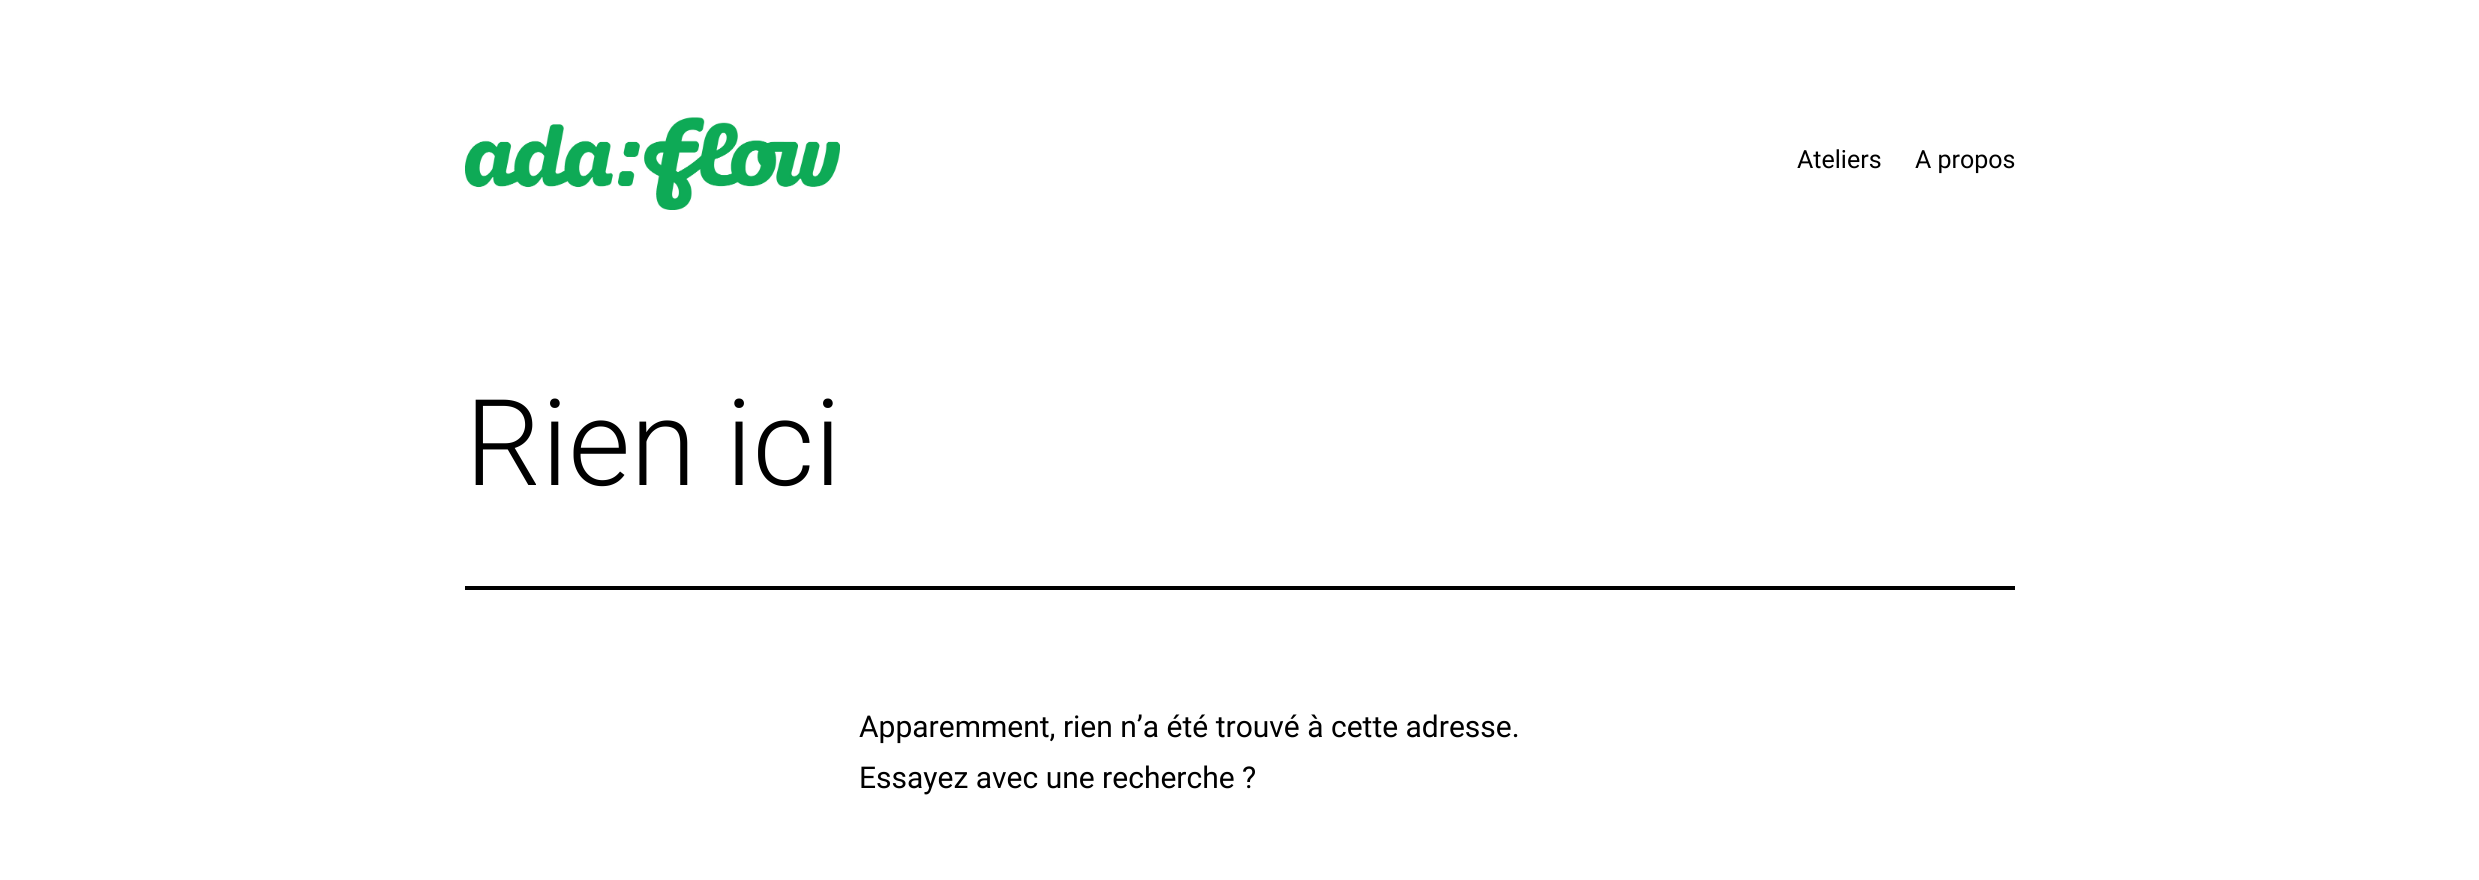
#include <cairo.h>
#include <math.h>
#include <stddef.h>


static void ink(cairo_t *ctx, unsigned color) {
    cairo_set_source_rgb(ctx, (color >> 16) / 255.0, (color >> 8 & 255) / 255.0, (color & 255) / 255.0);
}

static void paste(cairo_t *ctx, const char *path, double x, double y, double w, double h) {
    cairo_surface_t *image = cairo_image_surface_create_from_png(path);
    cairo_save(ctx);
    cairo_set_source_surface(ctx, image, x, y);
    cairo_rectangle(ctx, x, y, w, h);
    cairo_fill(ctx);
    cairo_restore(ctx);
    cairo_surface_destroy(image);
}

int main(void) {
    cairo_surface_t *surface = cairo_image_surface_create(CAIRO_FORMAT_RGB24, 2479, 880);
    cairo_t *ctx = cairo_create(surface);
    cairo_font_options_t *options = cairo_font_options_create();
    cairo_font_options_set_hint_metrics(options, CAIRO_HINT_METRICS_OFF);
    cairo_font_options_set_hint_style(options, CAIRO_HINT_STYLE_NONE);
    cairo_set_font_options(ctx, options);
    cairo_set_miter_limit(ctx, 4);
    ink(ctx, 0xFFFFFF);
    cairo_paint(ctx);
    paste(ctx, "media/1.png", 465, 117, 375, 93);
    cairo_select_font_face(ctx, "Roboto", CAIRO_FONT_SLANT_NORMAL, CAIRO_FONT_WEIGHT_NORMAL);
    cairo_set_font_size(ctx, 25);
    ink(ctx, 0x000000);
    cairo_move_to(ctx, 1797, 168);
    cairo_show_text(ctx, "Ateliers");
    cairo_move_to(ctx, 1915, 168);
    cairo_show_text(ctx, "A propos");
    cairo_rectangle(ctx, 465, 586, 1550, 4);
    cairo_fill(ctx);
    cairo_select_font_face(ctx, "Roboto Light", CAIRO_FONT_SLANT_NORMAL, CAIRO_FONT_WEIGHT_NORMAL);
    cairo_set_font_size(ctx, 120);
    cairo_move_to(ctx, 465, 485);
    cairo_show_text(ctx, "Rien ici");
    cairo_select_font_face(ctx, "Roboto", CAIRO_FONT_SLANT_NORMAL, CAIRO_FONT_WEIGHT_NORMAL);
    cairo_set_font_size(ctx, 30);
    cairo_move_to(ctx, 859, 737);
    cairo_show_text(ctx, "Apparemment, rien n’a été trouvé à cette adresse.");
    cairo_move_to(ctx, 859, 788);
    cairo_show_text(ctx, "Essayez avec une recherche ?");
    cairo_surface_write_to_png(surface, "image.png");
    cairo_font_options_destroy(options);
    cairo_destroy(ctx);
    cairo_surface_destroy(surface);
    return 0;
}
